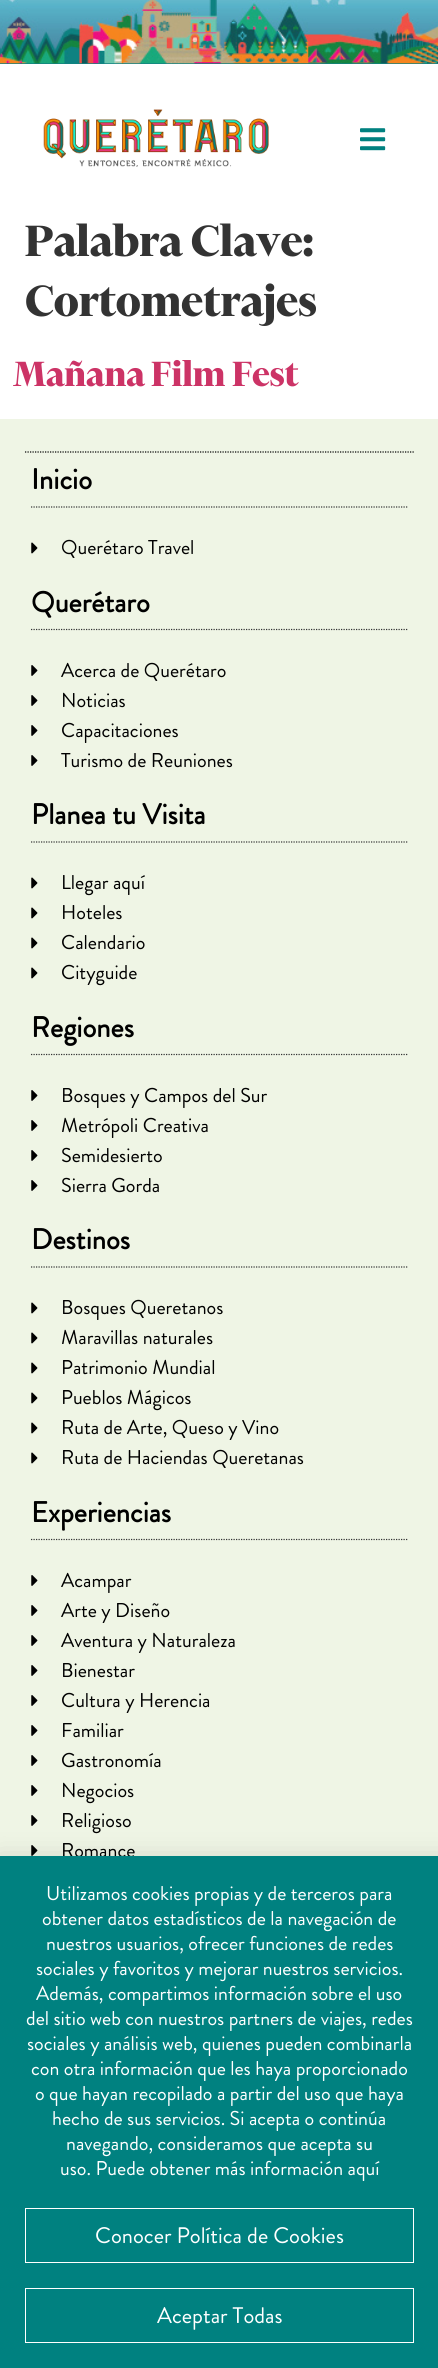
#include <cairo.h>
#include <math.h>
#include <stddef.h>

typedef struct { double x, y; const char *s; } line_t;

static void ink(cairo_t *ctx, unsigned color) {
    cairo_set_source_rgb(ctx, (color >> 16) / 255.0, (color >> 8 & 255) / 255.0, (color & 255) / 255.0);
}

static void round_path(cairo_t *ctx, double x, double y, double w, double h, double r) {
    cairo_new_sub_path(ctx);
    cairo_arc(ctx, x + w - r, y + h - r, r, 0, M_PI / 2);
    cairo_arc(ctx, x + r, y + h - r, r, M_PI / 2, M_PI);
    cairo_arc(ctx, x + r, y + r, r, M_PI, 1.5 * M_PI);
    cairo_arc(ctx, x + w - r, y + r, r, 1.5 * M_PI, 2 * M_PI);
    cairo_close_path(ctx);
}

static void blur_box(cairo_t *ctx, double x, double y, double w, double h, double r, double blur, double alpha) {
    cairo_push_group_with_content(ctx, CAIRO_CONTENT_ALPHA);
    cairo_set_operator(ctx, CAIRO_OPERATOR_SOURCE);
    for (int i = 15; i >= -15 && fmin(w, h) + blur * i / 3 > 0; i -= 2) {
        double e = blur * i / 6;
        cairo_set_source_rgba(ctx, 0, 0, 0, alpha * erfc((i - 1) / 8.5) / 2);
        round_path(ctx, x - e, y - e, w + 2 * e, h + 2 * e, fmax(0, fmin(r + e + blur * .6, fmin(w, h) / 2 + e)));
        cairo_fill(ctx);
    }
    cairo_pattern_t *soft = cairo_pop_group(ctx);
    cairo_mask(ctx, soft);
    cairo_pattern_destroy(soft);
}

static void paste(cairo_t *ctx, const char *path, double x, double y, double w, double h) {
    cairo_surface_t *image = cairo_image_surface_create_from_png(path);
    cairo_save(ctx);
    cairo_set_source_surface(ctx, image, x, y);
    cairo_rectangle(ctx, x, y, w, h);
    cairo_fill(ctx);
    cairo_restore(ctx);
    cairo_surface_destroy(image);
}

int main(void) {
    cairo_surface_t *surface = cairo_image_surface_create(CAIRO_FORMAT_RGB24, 438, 2368);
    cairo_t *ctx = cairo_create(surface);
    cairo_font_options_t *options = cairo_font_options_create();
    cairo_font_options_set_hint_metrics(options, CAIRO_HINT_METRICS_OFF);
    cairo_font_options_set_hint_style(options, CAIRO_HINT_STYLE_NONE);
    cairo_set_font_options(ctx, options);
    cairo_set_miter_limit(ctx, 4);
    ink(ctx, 0xFFFFFF);
    cairo_paint(ctx);
    ink(ctx, 0x118180);
    cairo_rectangle(ctx, 0, 63, 438, 1);
    cairo_fill(ctx);
    paste(ctx, "media/1.png", 0, 0, 438, 64);
    paste(ctx, "media/2.png", 43, 109, 226, 58);
    paste(ctx, "media/3.png", 360, 128, 26, 23);
    cairo_select_font_face(ctx, "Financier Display", CAIRO_FONT_SLANT_NORMAL, CAIRO_FONT_WEIGHT_BOLD);
    cairo_set_font_size(ctx, 50);
    ink(ctx, 0x333333);
    cairo_move_to(ctx, 25, 256);
    cairo_show_text(ctx, "Palabra Clave:");
    cairo_move_to(ctx, 25, 316);
    cairo_show_text(ctx, "Cortometrajes");
    cairo_set_font_size(ctx, 40);
    ink(ctx, 0xCC3366);
    cairo_move_to(ctx, 13, 386);
    cairo_show_text(ctx, "Mañana Film Fest");
    ink(ctx, 0xEFF5E5);
    cairo_rectangle(ctx, 0, 419, 438, 1437);
    cairo_fill(ctx);
    cairo_new_path(ctx);
    cairo_move_to(ctx, 25, 452);
    cairo_line_to(ctx, 414, 452);
    ink(ctx, 0x000000);
    cairo_set_line_width(ctx, 1.2);
    cairo_set_dash(ctx, (double[]){1.25, 1.25}, 2, 0);
    cairo_stroke(ctx);
    cairo_new_path(ctx);
    cairo_move_to(ctx, 31, 507);
    cairo_line_to(ctx, 407.5, 507);
    ink(ctx, 0x333333);
    cairo_stroke(ctx);
    cairo_select_font_face(ctx, "Brandon Grotesque", CAIRO_FONT_SLANT_NORMAL, CAIRO_FONT_WEIGHT_BOLD);
    cairo_set_font_size(ctx, 28.75);
    ink(ctx, 0x000000);
    cairo_move_to(ctx, 31, 489);
    cairo_show_text(ctx, "Inicio");
    paste(ctx, "media/4.png", 31, 542, 7, 12);
    cairo_select_font_face(ctx, "Brandon Grotesque", CAIRO_FONT_SLANT_NORMAL, CAIRO_FONT_WEIGHT_NORMAL);
    cairo_set_font_size(ctx, 20);
    cairo_move_to(ctx, 61, 554);
    cairo_show_text(ctx, "Querétaro Travel");
    cairo_new_path(ctx);
    cairo_move_to(ctx, 31, 629.5);
    cairo_line_to(ctx, 407.5, 629.5);
    ink(ctx, 0x333333);
    cairo_stroke(ctx);
    cairo_select_font_face(ctx, "Brandon Grotesque", CAIRO_FONT_SLANT_NORMAL, CAIRO_FONT_WEIGHT_BOLD);
    cairo_set_font_size(ctx, 28.75);
    ink(ctx, 0x000000);
    cairo_move_to(ctx, 31, 612);
    cairo_show_text(ctx, "Querétaro");
    paste(ctx, "media/5.png", 31, 665, 7, 11);
    cairo_select_font_face(ctx, "Brandon Grotesque", CAIRO_FONT_SLANT_NORMAL, CAIRO_FONT_WEIGHT_NORMAL);
    cairo_set_font_size(ctx, 20);
    cairo_move_to(ctx, 61, 677);
    cairo_show_text(ctx, "Acerca de Querétaro");
    paste(ctx, "media/5.png", 31, 695, 7, 11);
    cairo_move_to(ctx, 61, 707);
    cairo_show_text(ctx, "Noticias");
    paste(ctx, "media/5.png", 31, 725, 7, 11);
    cairo_move_to(ctx, 61, 737);
    cairo_show_text(ctx, "Capacitaciones");
    paste(ctx, "media/5.png", 31, 755, 7, 11);
    cairo_move_to(ctx, 61, 767);
    cairo_show_text(ctx, "Turismo de Reuniones");
    cairo_new_path(ctx);
    cairo_move_to(ctx, 31, 842);
    cairo_line_to(ctx, 407.5, 842);
    ink(ctx, 0x333333);
    cairo_stroke(ctx);
    cairo_select_font_face(ctx, "Brandon Grotesque", CAIRO_FONT_SLANT_NORMAL, CAIRO_FONT_WEIGHT_BOLD);
    cairo_set_font_size(ctx, 28.75);
    ink(ctx, 0x000000);
    cairo_move_to(ctx, 31, 824);
    cairo_show_text(ctx, "Planea tu Visita");
    paste(ctx, "media/4.png", 31, 877, 7, 12);
    cairo_select_font_face(ctx, "Brandon Grotesque", CAIRO_FONT_SLANT_NORMAL, CAIRO_FONT_WEIGHT_NORMAL);
    cairo_set_font_size(ctx, 20);
    cairo_move_to(ctx, 61, 889);
    cairo_show_text(ctx, "Llegar aquí");
    paste(ctx, "media/4.png", 31, 907, 7, 12);
    cairo_move_to(ctx, 61, 919);
    cairo_show_text(ctx, "Hoteles");
    paste(ctx, "media/4.png", 31, 937, 7, 12);
    cairo_move_to(ctx, 61, 949);
    cairo_show_text(ctx, "Calendario");
    paste(ctx, "media/4.png", 31, 967, 7, 12);
    cairo_move_to(ctx, 61, 979);
    cairo_show_text(ctx, "Cityguide");
    cairo_new_path(ctx);
    cairo_move_to(ctx, 31, 1054.5);
    cairo_line_to(ctx, 407.5, 1054.5);
    ink(ctx, 0x333333);
    cairo_stroke(ctx);
    cairo_select_font_face(ctx, "Brandon Grotesque", CAIRO_FONT_SLANT_NORMAL, CAIRO_FONT_WEIGHT_BOLD);
    cairo_set_font_size(ctx, 28.75);
    ink(ctx, 0x000000);
    cairo_move_to(ctx, 31, 1037);
    cairo_show_text(ctx, "Regiones");
    paste(ctx, "media/5.png", 31, 1090, 7, 11);
    cairo_select_font_face(ctx, "Brandon Grotesque", CAIRO_FONT_SLANT_NORMAL, CAIRO_FONT_WEIGHT_NORMAL);
    cairo_set_font_size(ctx, 20);
    cairo_move_to(ctx, 61, 1102);
    cairo_show_text(ctx, "Bosques y Campos del Sur");
    paste(ctx, "media/5.png", 31, 1120, 7, 11);
    cairo_move_to(ctx, 61, 1132);
    cairo_show_text(ctx, "Metrópoli Creativa");
    paste(ctx, "media/5.png", 31, 1150, 7, 11);
    cairo_move_to(ctx, 61, 1162);
    cairo_show_text(ctx, "Semidesierto");
    paste(ctx, "media/5.png", 31, 1180, 7, 11);
    cairo_move_to(ctx, 61, 1192);
    cairo_show_text(ctx, "Sierra Gorda");
    cairo_new_path(ctx);
    cairo_move_to(ctx, 31, 1267);
    cairo_line_to(ctx, 407.5, 1267);
    ink(ctx, 0x333333);
    cairo_stroke(ctx);
    cairo_select_font_face(ctx, "Brandon Grotesque", CAIRO_FONT_SLANT_NORMAL, CAIRO_FONT_WEIGHT_BOLD);
    cairo_set_font_size(ctx, 28.75);
    ink(ctx, 0x000000);
    cairo_move_to(ctx, 31, 1249);
    cairo_show_text(ctx, "Destinos");
    paste(ctx, "media/4.png", 31, 1302, 7, 12);
    cairo_select_font_face(ctx, "Brandon Grotesque", CAIRO_FONT_SLANT_NORMAL, CAIRO_FONT_WEIGHT_NORMAL);
    cairo_set_font_size(ctx, 20);
    cairo_move_to(ctx, 61, 1314);
    cairo_show_text(ctx, "Bosques Queretanos");
    paste(ctx, "media/4.png", 31, 1332, 7, 12);
    cairo_move_to(ctx, 61, 1344);
    cairo_show_text(ctx, "Maravillas naturales");
    paste(ctx, "media/4.png", 31, 1362, 7, 12);
    cairo_move_to(ctx, 61, 1374);
    cairo_show_text(ctx, "Patrimonio Mundial");
    paste(ctx, "media/4.png", 31, 1392, 7, 12);
    cairo_move_to(ctx, 61, 1404);
    cairo_show_text(ctx, "Pueblos Mágicos");
    paste(ctx, "media/4.png", 31, 1422, 7, 12);
    cairo_move_to(ctx, 61, 1434);
    cairo_show_text(ctx, "Ruta de Arte, Queso y Vino");
    paste(ctx, "media/4.png", 31, 1452, 7, 12);
    cairo_move_to(ctx, 61, 1464);
    cairo_show_text(ctx, "Ruta de Haciendas Queretanas");
    cairo_new_path(ctx);
    cairo_move_to(ctx, 31, 1539.5);
    cairo_line_to(ctx, 407.5, 1539.5);
    ink(ctx, 0x333333);
    cairo_stroke(ctx);
    cairo_select_font_face(ctx, "Brandon Grotesque", CAIRO_FONT_SLANT_NORMAL, CAIRO_FONT_WEIGHT_BOLD);
    cairo_set_font_size(ctx, 28.75);
    ink(ctx, 0x000000);
    cairo_move_to(ctx, 31, 1522);
    cairo_show_text(ctx, "Experiencias");
    paste(ctx, "media/5.png", 31, 1575, 7, 11);
    cairo_select_font_face(ctx, "Brandon Grotesque", CAIRO_FONT_SLANT_NORMAL, CAIRO_FONT_WEIGHT_NORMAL);
    cairo_set_font_size(ctx, 20);
    cairo_move_to(ctx, 61, 1587);
    cairo_show_text(ctx, "Acampar");
    paste(ctx, "media/5.png", 31, 1605, 7, 11);
    cairo_move_to(ctx, 61, 1617);
    cairo_show_text(ctx, "Arte y Diseño");
    paste(ctx, "media/5.png", 31, 1635, 7, 11);
    cairo_move_to(ctx, 61, 1647);
    cairo_show_text(ctx, "Aventura y Naturaleza");
    paste(ctx, "media/5.png", 31, 1665, 7, 11);
    cairo_move_to(ctx, 61, 1677);
    cairo_show_text(ctx, "Bienestar");
    paste(ctx, "media/5.png", 31, 1695, 7, 11);
    cairo_move_to(ctx, 61, 1707);
    cairo_show_text(ctx, "Cultura y Herencia");
    paste(ctx, "media/5.png", 31, 1725, 7, 11);
    cairo_move_to(ctx, 61, 1737);
    cairo_show_text(ctx, "Familiar");
    paste(ctx, "media/5.png", 31, 1755, 7, 11);
    cairo_move_to(ctx, 61, 1767);
    cairo_show_text(ctx, "Gastronomía");
    paste(ctx, "media/5.png", 31, 1785, 7, 11);
    cairo_move_to(ctx, 61, 1797);
    cairo_show_text(ctx, "Negocios");
    paste(ctx, "media/5.png", 31, 1815, 7, 11);
    cairo_move_to(ctx, 61, 1827);
    cairo_show_text(ctx, "Religioso");
    paste(ctx, "media/5.png", 31, 1845, 7, 11);
    cairo_move_to(ctx, 61, 1857);
    cairo_show_text(ctx, "Romance");
    ink(ctx, 0x000000);
    blur_box(ctx, -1, 1863, 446, 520, 0, 14.5, 0.2);
    ink(ctx, 0x008180);
    cairo_rectangle(ctx, 0, 1856, 438, 512);
    cairo_fill(ctx);
    ink(ctx, 0xFFFFFF);
    {
        static const line_t items[] = {
            {46, 1900, "Utilizamos cookies propias y de terceros para"},
            {42, 1925, "obtener datos estadísticos de la navegación de"},
            {46, 1950, "nuestros usuarios, ofrecer funciones de redes"},
            {36, 1975, "sociales y favoritos y mejorar nuestros servicios."},
            {36, 2000, "Además, compartimos información sobre el uso"},
            {26, 2025, "del sitio web con nuestros partners de viajes, redes"},
            {27, 2050, "sociales y análisis web, quienes pueden combinarla"},
            {31, 2075, "con otra información que les haya proporcionado"},
            {35, 2100, "o que hayan recopilado a partir del uso que haya"},
            {52, 2125, "hecho de sus servicios. Si acepta o continúa"},
            {66, 2150, "navegando, consideramos que acepta su"},
            {60, 2175, "uso. Puede obtener más información aquí"},
        };
        for (size_t i = 0; i < sizeof items / sizeof *items; i++) {
            cairo_move_to(ctx, items[i].x, items[i].y);
            cairo_show_text(ctx, items[i].s);
        }
    }
    cairo_rectangle(ctx, 25.5, 2208.5, 388, 54);
    cairo_set_line_width(ctx, 1);
    cairo_set_dash(ctx, NULL, 0, 0);
    cairo_stroke(ctx);
    cairo_set_font_size(ctx, 22.5);
    cairo_move_to(ctx, 95, 2243);
    cairo_show_text(ctx, "Conocer Política de Cookies");
    cairo_rectangle(ctx, 25.5, 2288.5, 388, 54);
    cairo_stroke(ctx);
    cairo_move_to(ctx, 157, 2323);
    cairo_show_text(ctx, "Aceptar Todas");
    cairo_surface_write_to_png(surface, "image.png");
    cairo_font_options_destroy(options);
    cairo_destroy(ctx);
    cairo_surface_destroy(surface);
    return 0;
}
